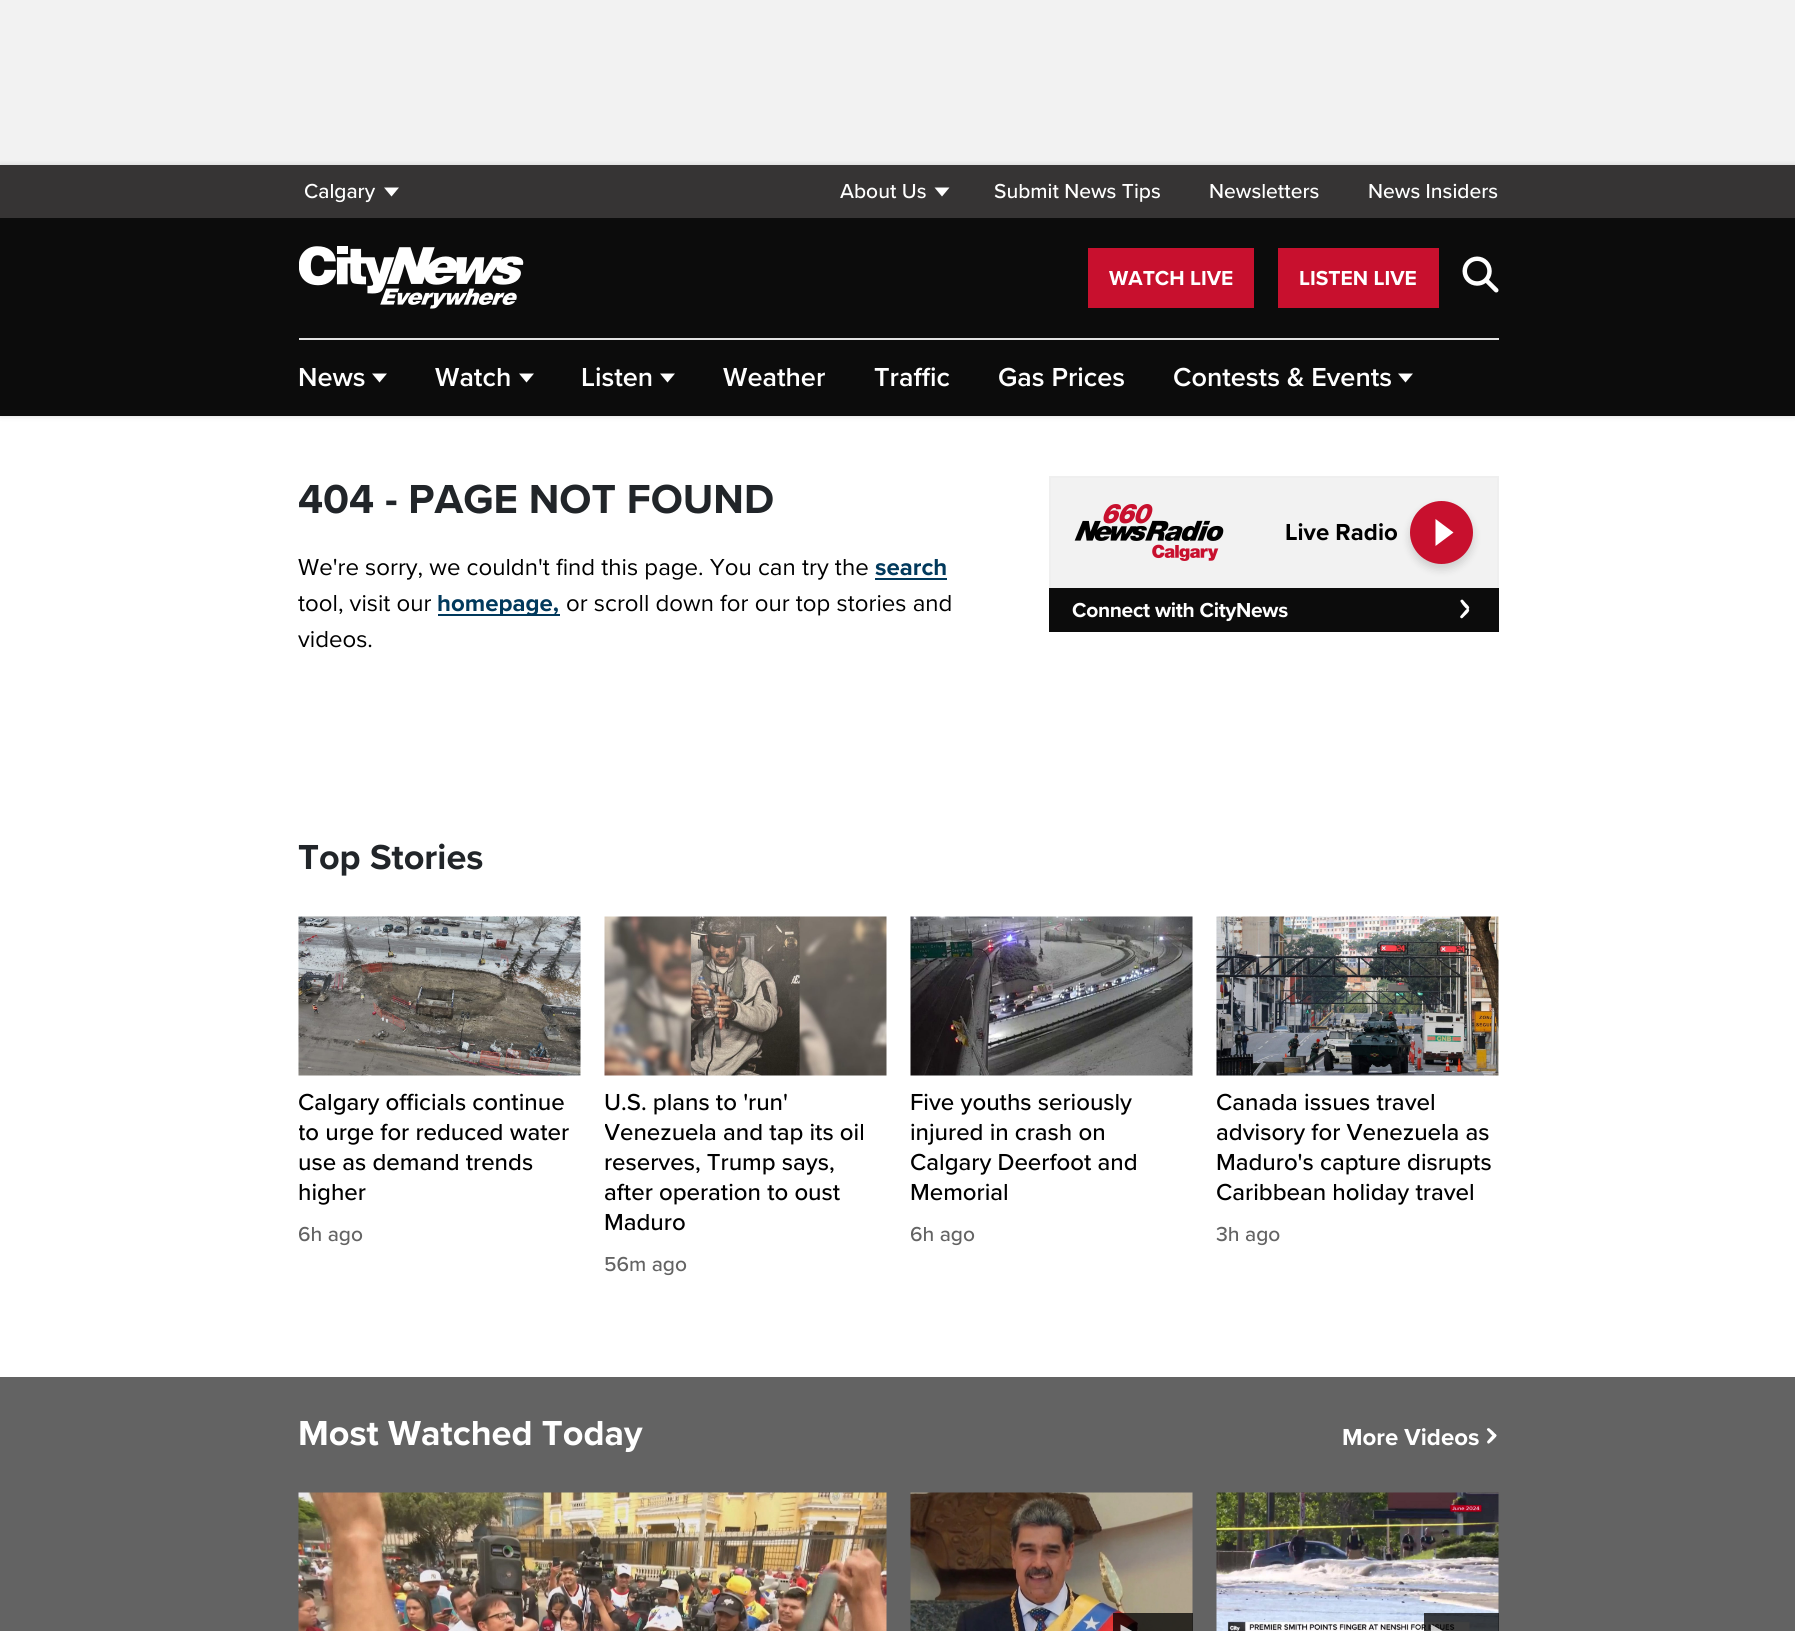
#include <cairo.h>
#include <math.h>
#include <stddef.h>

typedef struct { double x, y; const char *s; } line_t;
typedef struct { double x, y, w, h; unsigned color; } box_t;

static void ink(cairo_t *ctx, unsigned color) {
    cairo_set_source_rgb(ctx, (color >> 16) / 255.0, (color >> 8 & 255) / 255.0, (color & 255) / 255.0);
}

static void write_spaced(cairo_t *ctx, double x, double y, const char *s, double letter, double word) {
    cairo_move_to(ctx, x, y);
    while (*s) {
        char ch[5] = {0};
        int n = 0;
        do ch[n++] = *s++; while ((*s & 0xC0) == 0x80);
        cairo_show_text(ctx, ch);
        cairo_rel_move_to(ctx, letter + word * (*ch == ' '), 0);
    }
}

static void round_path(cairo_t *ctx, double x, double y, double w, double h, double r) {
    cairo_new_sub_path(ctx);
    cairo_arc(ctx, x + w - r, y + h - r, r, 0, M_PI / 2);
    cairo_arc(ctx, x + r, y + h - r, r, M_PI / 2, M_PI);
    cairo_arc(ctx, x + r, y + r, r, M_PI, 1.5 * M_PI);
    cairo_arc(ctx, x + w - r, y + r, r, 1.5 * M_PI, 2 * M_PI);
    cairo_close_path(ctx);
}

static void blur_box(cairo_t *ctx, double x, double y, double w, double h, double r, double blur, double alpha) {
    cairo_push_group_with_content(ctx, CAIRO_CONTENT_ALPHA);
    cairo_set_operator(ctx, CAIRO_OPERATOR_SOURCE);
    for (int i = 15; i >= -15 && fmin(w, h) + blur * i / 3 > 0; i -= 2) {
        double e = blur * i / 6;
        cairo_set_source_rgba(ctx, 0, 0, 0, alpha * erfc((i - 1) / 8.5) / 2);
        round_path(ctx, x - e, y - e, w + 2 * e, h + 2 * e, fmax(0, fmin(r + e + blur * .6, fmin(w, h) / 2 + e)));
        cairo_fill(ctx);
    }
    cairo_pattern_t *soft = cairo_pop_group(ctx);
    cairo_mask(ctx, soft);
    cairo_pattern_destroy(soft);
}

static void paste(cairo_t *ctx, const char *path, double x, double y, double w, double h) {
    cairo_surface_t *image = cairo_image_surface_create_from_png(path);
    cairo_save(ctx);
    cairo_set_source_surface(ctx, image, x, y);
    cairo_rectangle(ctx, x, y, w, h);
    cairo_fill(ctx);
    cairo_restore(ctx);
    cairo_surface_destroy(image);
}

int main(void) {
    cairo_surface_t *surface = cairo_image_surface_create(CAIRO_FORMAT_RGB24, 1795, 1631);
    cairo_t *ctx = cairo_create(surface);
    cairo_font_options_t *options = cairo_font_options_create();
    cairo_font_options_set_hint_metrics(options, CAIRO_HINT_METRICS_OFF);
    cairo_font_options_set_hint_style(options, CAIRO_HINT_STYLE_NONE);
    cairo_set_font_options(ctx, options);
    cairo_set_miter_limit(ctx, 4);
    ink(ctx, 0xFFFFFF);
    cairo_paint(ctx);
    ink(ctx, 0xF2F2F2);
    cairo_rectangle(ctx, 0, 0, 1795, 165);
    cairo_fill(ctx);
    ink(ctx, 0x000000);
    blur_box(ctx, 0, 165, 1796, 251, 0, 3, 0.15);
    ink(ctx, 0x0C0C0C);
    cairo_rectangle(ctx, 0, 218, 1795, 198);
    cairo_fill(ctx);
    ink(ctx, 0x363434);
    cairo_rectangle(ctx, 0, 165, 1795, 53);
    cairo_fill(ctx);
    cairo_select_font_face(ctx, "Proxima Nova Medium", CAIRO_FONT_SLANT_NORMAL, CAIRO_FONT_WEIGHT_NORMAL);
    cairo_set_font_size(ctx, 21);
    ink(ctx, 0xFFFFFF);
    cairo_move_to(ctx, 304, 198);
    cairo_show_text(ctx, "Calgary");
    cairo_new_path(ctx);
    cairo_move_to(ctx, 384, 187.5);
    cairo_line_to(ctx, 399, 187.5);
    cairo_line_to(ctx, 391.5, 196.5);
    cairo_close_path(ctx);
    cairo_fill(ctx);
    cairo_move_to(ctx, 840, 198);
    cairo_show_text(ctx, "About Us");
    cairo_new_path(ctx);
    cairo_move_to(ctx, 934.5, 187.5);
    cairo_line_to(ctx, 949.5, 187.5);
    cairo_line_to(ctx, 942, 196.5);
    cairo_close_path(ctx);
    cairo_fill(ctx);
    {
        static const line_t items[] = {
            {994, 198, "Submit News Tips"},
            {1209, 198, "Newsletters"},
            {1368, 198, "News Insiders"},
        };
        for (size_t i = 0; i < sizeof items / sizeof *items; i++) {
            cairo_move_to(ctx, items[i].x, items[i].y);
            cairo_show_text(ctx, items[i].s);
        }
    }
    paste(ctx, "media/1.png", 299, 246, 225, 63);
    ink(ctx, 0xC8102E);
    cairo_rectangle(ctx, 1088, 248, 166, 60);
    cairo_fill(ctx);
    cairo_select_font_face(ctx, "Proxima Nova", CAIRO_FONT_SLANT_NORMAL, CAIRO_FONT_WEIGHT_BOLD);
    ink(ctx, 0xFFFFFF);
    cairo_move_to(ctx, 1109, 285);
    cairo_show_text(ctx, "WATCH LIVE");
    ink(ctx, 0xC8102E);
    cairo_rectangle(ctx, 1278, 248, 161, 60);
    cairo_fill(ctx);
    ink(ctx, 0xFFFFFF);
    cairo_move_to(ctx, 1299, 285);
    cairo_show_text(ctx, "LISTEN LIVE");
    paste(ctx, "media/2.png", 1462, 256, 37, 37);
    ink(ctx, 0xE2E2E2);
    cairo_rectangle(ctx, 299, 338, 1200, 2);
    cairo_fill(ctx);
    cairo_select_font_face(ctx, "Proxima Nova SemiBold", CAIRO_FONT_SLANT_NORMAL, CAIRO_FONT_WEIGHT_NORMAL);
    cairo_set_font_size(ctx, 27);
    ink(ctx, 0xFFFFFF);
    cairo_move_to(ctx, 298, 386);
    cairo_show_text(ctx, "News");
    cairo_new_path(ctx);
    cairo_move_to(ctx, 372, 373.5);
    cairo_line_to(ctx, 387, 373.5);
    cairo_line_to(ctx, 379.5, 382.5);
    cairo_close_path(ctx);
    cairo_fill(ctx);
    cairo_move_to(ctx, 435, 386);
    cairo_show_text(ctx, "Watch");
    cairo_new_path(ctx);
    cairo_move_to(ctx, 519, 373.5);
    cairo_line_to(ctx, 534, 373.5);
    cairo_line_to(ctx, 526.5, 382.5);
    cairo_close_path(ctx);
    cairo_fill(ctx);
    cairo_move_to(ctx, 581, 386);
    cairo_show_text(ctx, "Listen");
    cairo_new_path(ctx);
    cairo_move_to(ctx, 660, 373.5);
    cairo_line_to(ctx, 675, 373.5);
    cairo_line_to(ctx, 667.5, 382.5);
    cairo_close_path(ctx);
    cairo_fill(ctx);
    {
        static const line_t items[] = {
            {723, 386, "Weather"},
            {874, 386, "Traffic"},
            {998, 386, "Gas Prices"},
            {1173, 386, "Contests & Events"},
        };
        for (size_t i = 0; i < sizeof items / sizeof *items; i++) {
            cairo_move_to(ctx, items[i].x, items[i].y);
            cairo_show_text(ctx, items[i].s);
        }
    }
    cairo_new_path(ctx);
    cairo_move_to(ctx, 1398, 373.5);
    cairo_line_to(ctx, 1413, 373.5);
    cairo_line_to(ctx, 1405.5, 382.5);
    cairo_close_path(ctx);
    cairo_fill(ctx);
    cairo_select_font_face(ctx, "Proxima Nova", CAIRO_FONT_SLANT_NORMAL, CAIRO_FONT_WEIGHT_BOLD);
    cairo_set_font_size(ctx, 42);
    ink(ctx, 0x212529);
    cairo_move_to(ctx, 298, 513);
    cairo_show_text(ctx, "404 - PAGE NOT FOUND");
    cairo_select_font_face(ctx, "Proxima Nova", CAIRO_FONT_SLANT_NORMAL, CAIRO_FONT_WEIGHT_NORMAL);
    cairo_set_font_size(ctx, 24);
    ink(ctx, 0x000000);
    cairo_move_to(ctx, 298, 575);
    cairo_show_text(ctx, "We're sorry, we couldn't find this page. You can try the");
    cairo_select_font_face(ctx, "Proxima Nova", CAIRO_FONT_SLANT_NORMAL, CAIRO_FONT_WEIGHT_BOLD);
    ink(ctx, 0x01395C);
    cairo_move_to(ctx, 875, 575);
    cairo_show_text(ctx, "search");
    cairo_rectangle(ctx, 875, 578, 72, 2);
    cairo_fill(ctx);
    cairo_select_font_face(ctx, "Proxima Nova", CAIRO_FONT_SLANT_NORMAL, CAIRO_FONT_WEIGHT_NORMAL);
    ink(ctx, 0x000000);
    cairo_move_to(ctx, 298, 611);
    cairo_show_text(ctx, "tool, visit our");
    ink(ctx, 0x01395C);
    cairo_rectangle(ctx, 438, 614, 122, 2);
    cairo_fill(ctx);
    cairo_select_font_face(ctx, "Proxima Nova", CAIRO_FONT_SLANT_NORMAL, CAIRO_FONT_WEIGHT_BOLD);
    cairo_move_to(ctx, 437, 611);
    cairo_show_text(ctx, "homepage,");
    cairo_select_font_face(ctx, "Proxima Nova", CAIRO_FONT_SLANT_NORMAL, CAIRO_FONT_WEIGHT_NORMAL);
    ink(ctx, 0x000000);
    cairo_move_to(ctx, 566, 611);
    cairo_show_text(ctx, "or scroll down for our top stories and");
    cairo_move_to(ctx, 298, 647);
    cairo_show_text(ctx, "videos.");
    {
        static const box_t items[] = {
            {1051, 478, 446, 110, 0xF2F2F2},
            {1049, 476, 450, 2, 0xEFEFEF},
            {1497, 476, 2, 112, 0xEFEFEF},
            {1049, 476, 2, 112, 0xEFEFEF},
        };
        for (size_t i = 0; i < sizeof items / sizeof *items; i++) {
            ink(ctx, items[i].color);
            cairo_rectangle(ctx, items[i].x, items[i].y, items[i].w, items[i].h);
            cairo_fill(ctx);
        }
    }
    paste(ctx, "media/3.png", 1074, 504, 150, 57);
    cairo_select_font_face(ctx, "Proxima Nova", CAIRO_FONT_SLANT_NORMAL, CAIRO_FONT_WEIGHT_BOLD);
    ink(ctx, 0x000000);
    cairo_move_to(ctx, 1285, 540);
    cairo_show_text(ctx, "Live Radio");
    ink(ctx, 0x000000);
    blur_box(ctx, 1410, 506, 63, 63, 31.5, 4.5, 0.16);
    ink(ctx, 0xC8102E);
    cairo_arc(ctx, 1441.5, 532.5, 31.5, 0, 2 * M_PI);
    cairo_fill(ctx);
    ink(ctx, 0xFFFFFF);
    cairo_new_path(ctx);
    cairo_move_to(ctx, 1435.5, 546);
    cairo_line_to(ctx, 1435.5, 519);
    cairo_line_to(ctx, 1453.5, 532.5);
    cairo_close_path(ctx);
    cairo_fill(ctx);
    ink(ctx, 0x0C0C0C);
    cairo_rectangle(ctx, 1049, 588, 450, 44);
    cairo_fill(ctx);
    cairo_set_font_size(ctx, 21);
    ink(ctx, 0xFFFFFF);
    write_spaced(ctx, 1072, 617, "Connect with CityNews", -0.3, 0);
    cairo_new_path(ctx);
    cairo_move_to(ctx, 1463, 600);
    cairo_line_to(ctx, 1466, 603.5);
    cairo_curve_to(ctx, 1467, 604.5, 1470, 607, 1469, 608.5);
    cairo_curve_to(ctx, 1467, 611, 1463.5, 605.5, 1462.5, 604.5);
    cairo_line_to(ctx, 1460.5, 601.5);
    cairo_curve_to(ctx, 1460, 600, 1462, 599, 1463, 600);
    cairo_close_path(ctx);
    cairo_fill(ctx);
    cairo_new_path(ctx);
    cairo_move_to(ctx, 1460.5, 616);
    cairo_line_to(ctx, 1463.5, 612.5);
    cairo_curve_to(ctx, 1464.5, 611.5, 1466.5, 608, 1468.5, 609);
    cairo_curve_to(ctx, 1471, 610.5, 1466, 614.5, 1465, 615.5);
    cairo_line_to(ctx, 1462.5, 618);
    cairo_curve_to(ctx, 1461, 619, 1459.5, 617, 1460.5, 616);
    cairo_close_path(ctx);
    cairo_fill(ctx);
    cairo_set_font_size(ctx, 36);
    ink(ctx, 0x212529);
    cairo_move_to(ctx, 298, 869);
    cairo_show_text(ctx, "Top Stories");
    paste(ctx, "media/4.png", 298, 916, 283, 160);
    cairo_select_font_face(ctx, "Proxima Nova Medium", CAIRO_FONT_SLANT_NORMAL, CAIRO_FONT_WEIGHT_NORMAL);
    cairo_set_font_size(ctx, 24);
    ink(ctx, 0x000000);
    cairo_move_to(ctx, 298, 1110);
    cairo_show_text(ctx, "Calgary officials continue");
    cairo_save(ctx);
    cairo_rectangle(ctx, 299, 1088, 282, 120);
    cairo_clip(ctx);
    cairo_move_to(ctx, 298, 1140);
    cairo_show_text(ctx, "to urge for reduced water");
    cairo_restore(ctx);
    cairo_move_to(ctx, 298, 1170);
    cairo_show_text(ctx, "use as demand trends");
    cairo_move_to(ctx, 298, 1200);
    cairo_show_text(ctx, "higher");
    cairo_set_font_size(ctx, 21);
    ink(ctx, 0x636363);
    cairo_move_to(ctx, 298, 1241);
    cairo_show_text(ctx, "6h ago");
    paste(ctx, "media/5.png", 604, 916, 283, 160);
    cairo_set_font_size(ctx, 24);
    ink(ctx, 0x000000);
    cairo_move_to(ctx, 604, 1110);
    cairo_show_text(ctx, "U.S. plans to 'run'");
    cairo_save(ctx);
    cairo_rectangle(ctx, 605, 1088, 282, 150);
    cairo_clip(ctx);
    cairo_move_to(ctx, 604, 1140);
    cairo_show_text(ctx, "Venezuela and tap its oil");
    cairo_restore(ctx);
    {
        static const line_t items[] = {
            {604, 1170, "reserves, Trump says,"},
            {604, 1200, "after operation to oust"},
            {604, 1230, "Maduro"},
        };
        for (size_t i = 0; i < sizeof items / sizeof *items; i++) {
            cairo_move_to(ctx, items[i].x, items[i].y);
            cairo_show_text(ctx, items[i].s);
        }
    }
    cairo_set_font_size(ctx, 21);
    ink(ctx, 0x636363);
    cairo_move_to(ctx, 604, 1271);
    cairo_show_text(ctx, "56m ago");
    paste(ctx, "media/6.png", 910, 916, 283, 160);
    cairo_set_font_size(ctx, 24);
    ink(ctx, 0x000000);
    {
        static const line_t items[] = {
            {910, 1110, "Five youths seriously"},
            {910, 1140, "injured in crash on"},
            {910, 1170, "Calgary Deerfoot and"},
            {910, 1200, "Memorial"},
        };
        for (size_t i = 0; i < sizeof items / sizeof *items; i++) {
            cairo_move_to(ctx, items[i].x, items[i].y);
            cairo_show_text(ctx, items[i].s);
        }
    }
    cairo_set_font_size(ctx, 21);
    ink(ctx, 0x636363);
    cairo_move_to(ctx, 910, 1241);
    cairo_show_text(ctx, "6h ago");
    paste(ctx, "media/7.png", 1216, 916, 283, 160);
    cairo_set_font_size(ctx, 24);
    ink(ctx, 0x000000);
    {
        static const line_t items[] = {
            {1216, 1110, "Canada issues travel"},
            {1216, 1140, "advisory for Venezuela as"},
            {1216, 1170, "Maduro's capture disrupts"},
            {1216, 1200, "Caribbean holiday travel"},
        };
        for (size_t i = 0; i < sizeof items / sizeof *items; i++) {
            cairo_move_to(ctx, items[i].x, items[i].y);
            cairo_show_text(ctx, items[i].s);
        }
    }
    cairo_set_font_size(ctx, 21);
    ink(ctx, 0x636363);
    cairo_move_to(ctx, 1216, 1241);
    cairo_show_text(ctx, "3h ago");
    cairo_rectangle(ctx, 0, 1377, 1795, 254);
    cairo_fill(ctx);
    cairo_select_font_face(ctx, "Proxima Nova", CAIRO_FONT_SLANT_NORMAL, CAIRO_FONT_WEIGHT_BOLD);
    cairo_set_font_size(ctx, 36);
    ink(ctx, 0xFFFFFF);
    cairo_move_to(ctx, 298, 1445);
    cairo_show_text(ctx, "Most Watched Today");
    cairo_set_font_size(ctx, 24);
    cairo_move_to(ctx, 1342, 1445);
    cairo_show_text(ctx, "More Videos");
    cairo_new_path(ctx);
    cairo_move_to(ctx, 1489.5, 1428.5);
    cairo_line_to(ctx, 1493, 1431.5);
    cairo_curve_to(ctx, 1493.5, 1432.5, 1497.5, 1435, 1496, 1436.5);
    cairo_curve_to(ctx, 1494.5, 1439, 1490.5, 1433.5, 1489.5, 1432.5);
    cairo_line_to(ctx, 1487, 1430);
    cairo_curve_to(ctx, 1486.5, 1428.5, 1488.5, 1427.5, 1489.5, 1428.5);
    cairo_close_path(ctx);
    cairo_fill(ctx);
    cairo_new_path(ctx);
    cairo_move_to(ctx, 1487.5, 1441);
    cairo_line_to(ctx, 1490.5, 1437.5);
    cairo_curve_to(ctx, 1491.5, 1436.5, 1494, 1433, 1496, 1434.5);
    cairo_curve_to(ctx, 1498, 1436, 1492.5, 1440, 1492, 1441);
    cairo_line_to(ctx, 1489, 1443.5);
    cairo_curve_to(ctx, 1487.5, 1444, 1486.5, 1442, 1487.5, 1441);
    cairo_close_path(ctx);
    cairo_fill(ctx);
    paste(ctx, "media/8.png", 298, 1492, 589, 139);
    paste(ctx, "media/9.png", 910, 1492, 283, 139);
    cairo_set_source_rgba(ctx, 0, 0, 0, 0.75);
    cairo_rectangle(ctx, 1113, 1613, 80, 18);
    cairo_fill(ctx);
    cairo_set_source_rgba(ctx, 1, 1, 1, 0.75);
    cairo_new_path(ctx);
    cairo_move_to(ctx, 1120.5, 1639.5);
    cairo_line_to(ctx, 1120.5, 1624.5);
    cairo_line_to(ctx, 1134, 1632);
    cairo_close_path(ctx);
    cairo_fill(ctx);
    paste(ctx, "media/10.png", 1216, 1492, 283, 139);
    cairo_set_source_rgba(ctx, 0, 0, 0, 0.75);
    cairo_rectangle(ctx, 1424, 1613, 75, 18);
    cairo_fill(ctx);
    cairo_set_source_rgba(ctx, 1, 1, 1, 0.75);
    cairo_new_path(ctx);
    cairo_move_to(ctx, 1431, 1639.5);
    cairo_line_to(ctx, 1431, 1624.5);
    cairo_line_to(ctx, 1444.5, 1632);
    cairo_close_path(ctx);
    cairo_fill(ctx);
    cairo_surface_write_to_png(surface, "image.png");
    cairo_font_options_destroy(options);
    cairo_destroy(ctx);
    cairo_surface_destroy(surface);
    return 0;
}
